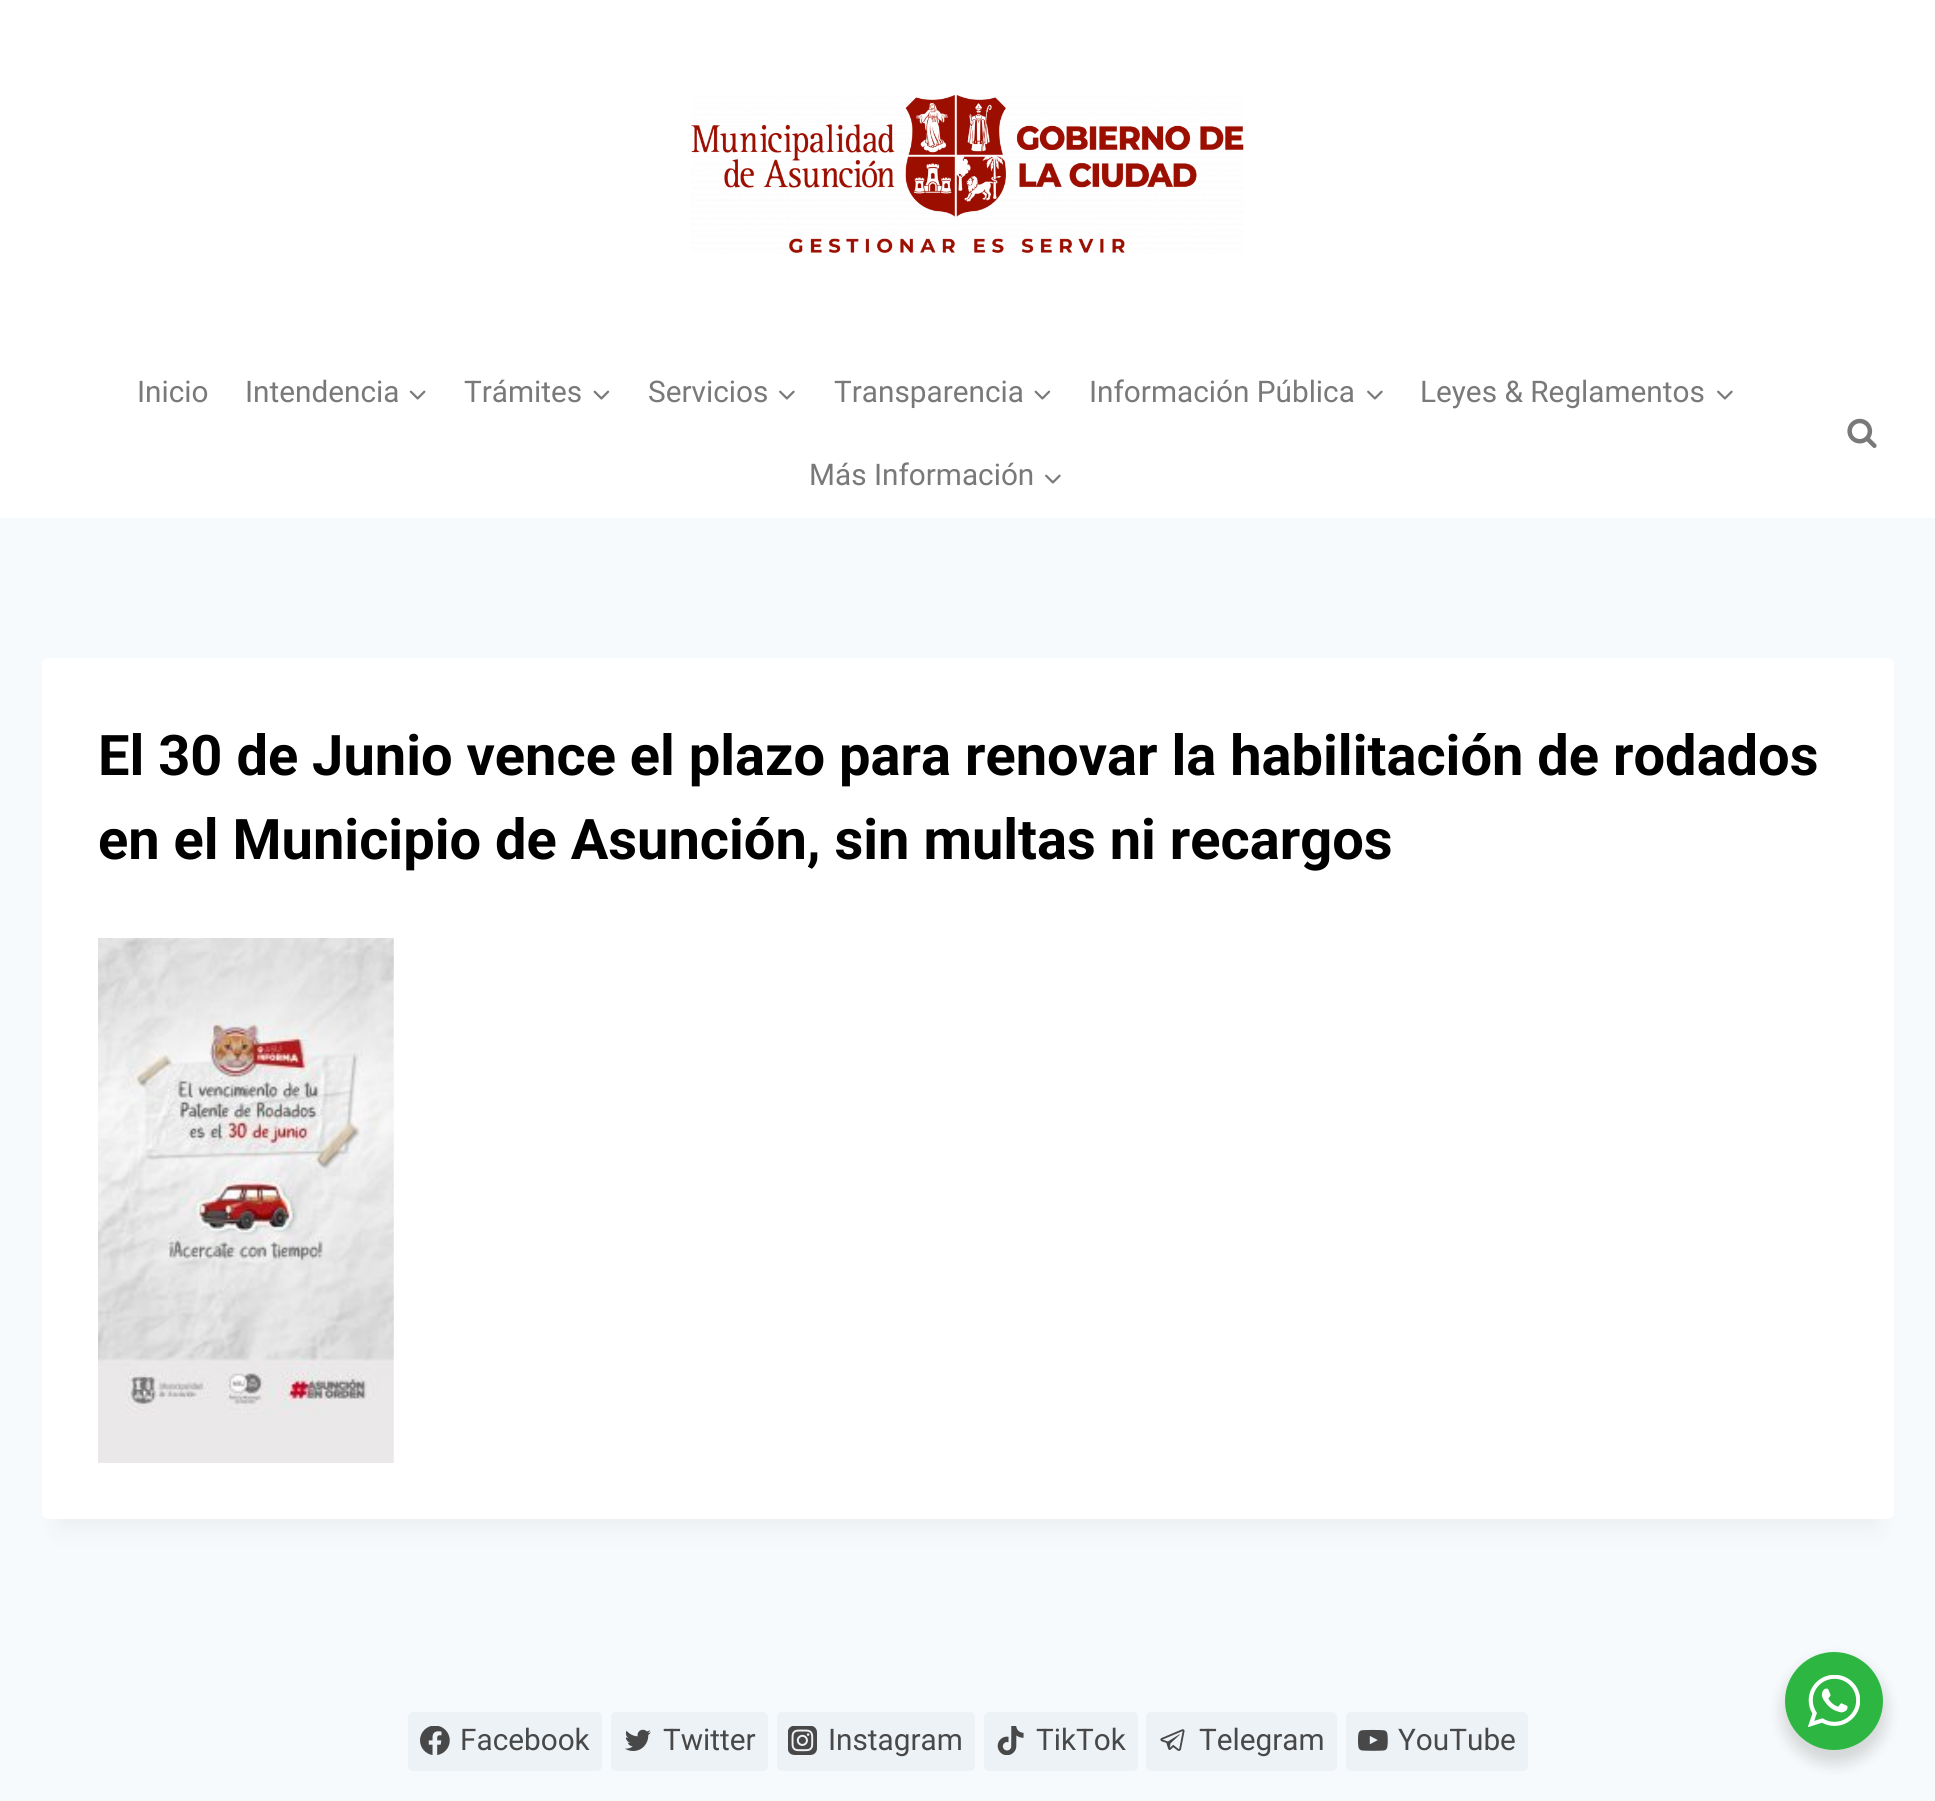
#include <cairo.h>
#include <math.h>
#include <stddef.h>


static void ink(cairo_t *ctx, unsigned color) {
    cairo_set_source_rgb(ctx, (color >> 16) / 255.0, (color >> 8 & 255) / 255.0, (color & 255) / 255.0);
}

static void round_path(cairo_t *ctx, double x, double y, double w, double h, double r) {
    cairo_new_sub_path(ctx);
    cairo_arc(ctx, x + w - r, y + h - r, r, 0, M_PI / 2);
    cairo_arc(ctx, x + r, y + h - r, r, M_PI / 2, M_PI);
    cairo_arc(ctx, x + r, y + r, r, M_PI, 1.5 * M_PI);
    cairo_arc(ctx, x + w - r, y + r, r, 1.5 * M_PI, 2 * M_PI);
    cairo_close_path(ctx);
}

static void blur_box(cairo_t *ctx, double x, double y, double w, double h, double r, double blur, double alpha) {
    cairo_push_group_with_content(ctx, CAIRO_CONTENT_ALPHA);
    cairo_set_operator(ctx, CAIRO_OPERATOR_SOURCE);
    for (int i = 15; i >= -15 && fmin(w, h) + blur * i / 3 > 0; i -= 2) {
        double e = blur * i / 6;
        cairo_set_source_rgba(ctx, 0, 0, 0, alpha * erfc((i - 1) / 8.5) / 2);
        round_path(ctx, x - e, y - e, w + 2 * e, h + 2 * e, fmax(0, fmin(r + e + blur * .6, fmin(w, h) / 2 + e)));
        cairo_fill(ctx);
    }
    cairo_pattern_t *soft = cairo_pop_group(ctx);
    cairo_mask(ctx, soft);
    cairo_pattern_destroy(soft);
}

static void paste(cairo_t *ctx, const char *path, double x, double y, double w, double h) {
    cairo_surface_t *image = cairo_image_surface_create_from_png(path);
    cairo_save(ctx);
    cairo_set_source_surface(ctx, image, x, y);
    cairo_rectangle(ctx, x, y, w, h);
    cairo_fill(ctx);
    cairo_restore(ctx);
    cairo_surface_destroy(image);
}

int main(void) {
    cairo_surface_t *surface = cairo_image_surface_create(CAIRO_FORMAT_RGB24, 1935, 1801);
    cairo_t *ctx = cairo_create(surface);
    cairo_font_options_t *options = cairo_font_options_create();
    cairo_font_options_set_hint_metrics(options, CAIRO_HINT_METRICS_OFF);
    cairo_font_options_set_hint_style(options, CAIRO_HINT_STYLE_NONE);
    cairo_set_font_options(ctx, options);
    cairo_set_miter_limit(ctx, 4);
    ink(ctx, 0xF7FAFC);
    cairo_paint(ctx);
    ink(ctx, 0xFFFFFF);
    cairo_rectangle(ctx, 0, 0, 1935, 518);
    cairo_fill(ctx);
    paste(ctx, "media/1.png", 691, 95, 553, 159);
    cairo_select_font_face(ctx, "Roboto", CAIRO_FONT_SLANT_NORMAL, CAIRO_FONT_WEIGHT_NORMAL);
    cairo_set_font_size(ctx, 29.75);
    ink(ctx, 0x797979);
    cairo_move_to(ctx, 137, 402);
    cairo_show_text(ctx, "Inicio");
    cairo_move_to(ctx, 245, 402);
    cairo_show_text(ctx, "Intendencia");
    paste(ctx, "media/2.png", 409, 390, 17, 10);
    cairo_move_to(ctx, 464, 402);
    cairo_show_text(ctx, "Trámites");
    paste(ctx, "media/3.png", 593, 390, 17, 10);
    cairo_move_to(ctx, 648, 402);
    cairo_show_text(ctx, "Servicios");
    paste(ctx, "media/4.png", 779, 390, 16, 10);
    cairo_move_to(ctx, 834, 402);
    cairo_show_text(ctx, "Transparencia");
    paste(ctx, "media/3.png", 1034, 390, 17, 10);
    cairo_move_to(ctx, 1089, 402);
    cairo_show_text(ctx, "Información Pública");
    paste(ctx, "media/4.png", 1367, 390, 16, 10);
    cairo_move_to(ctx, 1420, 402);
    cairo_show_text(ctx, "Leyes & Reglamentos");
    paste(ctx, "media/4.png", 1717, 390, 16, 10);
    cairo_move_to(ctx, 809, 485);
    cairo_show_text(ctx, "Más Información");
    paste(ctx, "media/4.png", 1045, 474, 16, 10);
    paste(ctx, "media/5.png", 1847, 418, 30, 30);
    ink(ctx, 0x000000);
    blur_box(ctx, 60, 702, 1816, 826, 0, 13, 0.05);
    ink(ctx, 0xFFFFFF);
    round_path(ctx, 42, 658, 1852, 861, 7);
    cairo_fill(ctx);
    cairo_select_font_face(ctx, "Roboto", CAIRO_FONT_SLANT_NORMAL, CAIRO_FONT_WEIGHT_BOLD);
    cairo_set_font_size(ctx, 56);
    ink(ctx, 0x000000);
    cairo_move_to(ctx, 98, 775);
    cairo_show_text(ctx, "El 30 de Junio vence el plazo para renovar la habilitación de rodados");
    cairo_move_to(ctx, 98, 859);
    cairo_show_text(ctx, "en el Municipio de Asunción, sin multas ni recargos");
    paste(ctx, "media/6.png", 98, 938, 296, 525);
    ink(ctx, 0xEDF2F7);
    round_path(ctx, 408, 1712, 194, 59, 5);
    cairo_fill(ctx);
    paste(ctx, "media/7.png", 420, 1726, 30, 29);
    cairo_select_font_face(ctx, "Roboto", CAIRO_FONT_SLANT_NORMAL, CAIRO_FONT_WEIGHT_NORMAL);
    cairo_set_font_size(ctx, 29.75);
    ink(ctx, 0x484848);
    cairo_move_to(ctx, 460, 1750);
    cairo_show_text(ctx, "Facebook");
    ink(ctx, 0xEDF2F7);
    round_path(ctx, 611, 1712, 157, 59, 5);
    cairo_fill(ctx);
    paste(ctx, "media/8.png", 625, 1729, 26, 22);
    ink(ctx, 0x484848);
    cairo_move_to(ctx, 663, 1750);
    cairo_show_text(ctx, "Twitter");
    ink(ctx, 0xEDF2F7);
    round_path(ctx, 777, 1712, 198, 59, 5);
    cairo_fill(ctx);
    paste(ctx, "media/9.png", 788, 1726, 29, 29);
    ink(ctx, 0x484848);
    cairo_move_to(ctx, 828, 1750);
    cairo_show_text(ctx, "Instagram");
    ink(ctx, 0xEDF2F7);
    round_path(ctx, 984, 1712, 154, 59, 5);
    cairo_fill(ctx);
    paste(ctx, "media/10.png", 997, 1726, 27, 29);
    ink(ctx, 0x484848);
    cairo_move_to(ctx, 1036, 1750);
    cairo_show_text(ctx, "TikTok");
    ink(ctx, 0xEDF2F7);
    round_path(ctx, 1146, 1712, 191, 59, 5);
    cairo_fill(ctx);
    paste(ctx, "media/11.png", 1160, 1729, 25, 22);
    ink(ctx, 0x484848);
    cairo_move_to(ctx, 1199, 1750);
    cairo_show_text(ctx, "Telegram");
    ink(ctx, 0xEDF2F7);
    round_path(ctx, 1346, 1712, 182, 59, 5);
    cairo_fill(ctx);
    paste(ctx, "media/12.png", 1358, 1729, 30, 22);
    ink(ctx, 0x484848);
    cairo_move_to(ctx, 1398, 1750);
    cairo_show_text(ctx, "YouTube");
    ink(ctx, 0x000000);
    blur_box(ctx, 1782, 1659, 105, 105, 52.5, 7, 0.14);
    ink(ctx, 0x2DB742);
    cairo_arc(ctx, 1834, 1701, 49, 0, 2 * M_PI);
    cairo_fill(ctx);
    paste(ctx, "media/13.png", 1808, 1675, 52, 52);
    cairo_surface_write_to_png(surface, "image.png");
    cairo_font_options_destroy(options);
    cairo_destroy(ctx);
    cairo_surface_destroy(surface);
    return 0;
}
